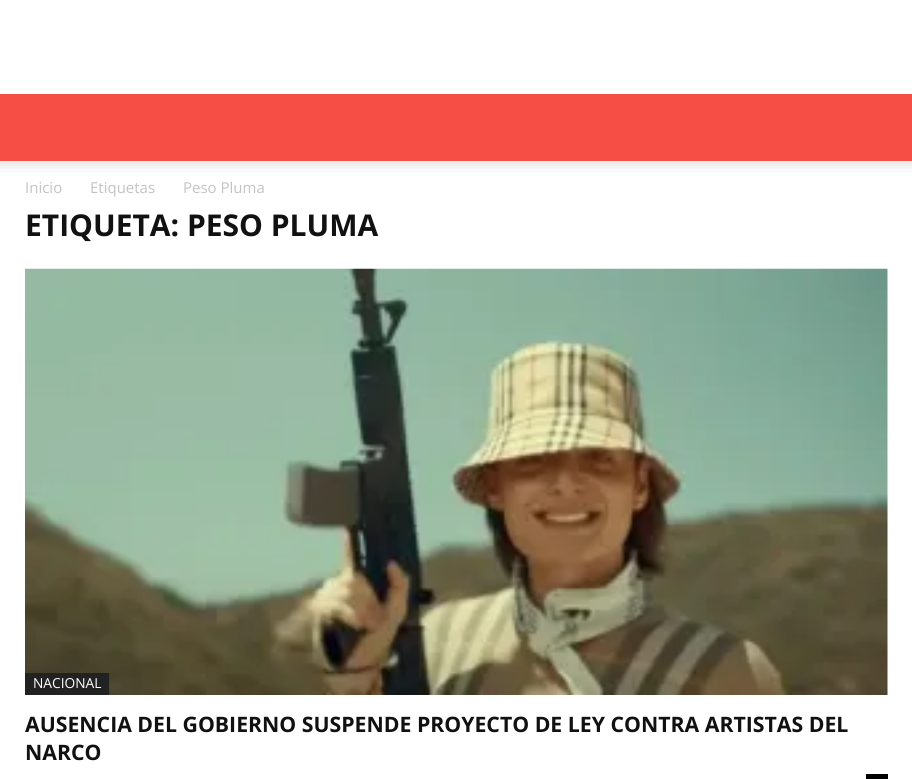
#include <cairo.h>
#include <math.h>
#include <stddef.h>

typedef struct { double x, y; const char *s; } line_t;

static void ink(cairo_t *ctx, unsigned color) {
    cairo_set_source_rgb(ctx, (color >> 16) / 255.0, (color >> 8 & 255) / 255.0, (color & 255) / 255.0);
}

static void paste(cairo_t *ctx, const char *path, double x, double y, double w, double h) {
    cairo_surface_t *image = cairo_image_surface_create_from_png(path);
    cairo_save(ctx);
    cairo_set_source_surface(ctx, image, x, y);
    cairo_rectangle(ctx, x, y, w, h);
    cairo_fill(ctx);
    cairo_restore(ctx);
    cairo_surface_destroy(image);
}

int main(void) {
    cairo_surface_t *surface = cairo_image_surface_create(CAIRO_FORMAT_RGB24, 912, 779);
    cairo_t *ctx = cairo_create(surface);
    cairo_font_options_t *options = cairo_font_options_create();
    cairo_font_options_set_hint_metrics(options, CAIRO_HINT_METRICS_OFF);
    cairo_font_options_set_hint_style(options, CAIRO_HINT_STYLE_NONE);
    cairo_set_font_options(ctx, options);
    cairo_set_miter_limit(ctx, 4);
    ink(ctx, 0xFFFFFF);
    cairo_paint(ctx);
    ink(ctx, 0xF64D45);
    cairo_rectangle(ctx, 0, 94, 912, 67);
    cairo_fill(ctx);
    paste(ctx, "media/1.png", 0, 161, 912, 11);
    cairo_select_font_face(ctx, "Open Sans", CAIRO_FONT_SLANT_NORMAL, CAIRO_FONT_WEIGHT_NORMAL);
    cairo_set_font_size(ctx, 15);
    ink(ctx, 0xC3C3C3);
    {
        static const line_t items[] = {
            {25, 193, "Inicio"},
            {90, 193, "Etiquetas"},
            {183, 193, "Peso Pluma"},
        };
        for (size_t i = 0; i < sizeof items / sizeof *items; i++) {
            cairo_move_to(ctx, items[i].x, items[i].y);
            cairo_show_text(ctx, items[i].s);
        }
    }
    cairo_select_font_face(ctx, "Open Sans", CAIRO_FONT_SLANT_NORMAL, CAIRO_FONT_WEIGHT_BOLD);
    cairo_set_font_size(ctx, 30);
    ink(ctx, 0x111111);
    cairo_move_to(ctx, 25, 236);
    cairo_show_text(ctx, "ETIQUETA: PESO PLUMA");
    paste(ctx, "media/2.png", 25, 268, 863, 427);
    ink(ctx, 0x222222);
    cairo_rectangle(ctx, 25, 673, 84, 22);
    cairo_fill(ctx);
    cairo_select_font_face(ctx, "Open Sans", CAIRO_FONT_SLANT_NORMAL, CAIRO_FONT_WEIGHT_NORMAL);
    cairo_set_font_size(ctx, 13.75);
    ink(ctx, 0xFFFFFF);
    cairo_move_to(ctx, 33, 688);
    cairo_show_text(ctx, "NACIONAL");
    cairo_select_font_face(ctx, "Open Sans", CAIRO_FONT_SLANT_NORMAL, CAIRO_FONT_WEIGHT_BOLD);
    cairo_set_font_size(ctx, 21.25);
    ink(ctx, 0x111111);
    cairo_move_to(ctx, 25, 732);
    cairo_show_text(ctx, "AUSENCIA DEL GOBIERNO SUSPENDE PROYECTO DE LEY CONTRA ARTISTAS DEL");
    cairo_move_to(ctx, 25, 760);
    cairo_show_text(ctx, "NARCO");
    ink(ctx, 0x000000);
    cairo_rectangle(ctx, 866, 774, 22, 5);
    cairo_fill(ctx);
    cairo_surface_write_to_png(surface, "image.png");
    cairo_font_options_destroy(options);
    cairo_destroy(ctx);
    cairo_surface_destroy(surface);
    return 0;
}
